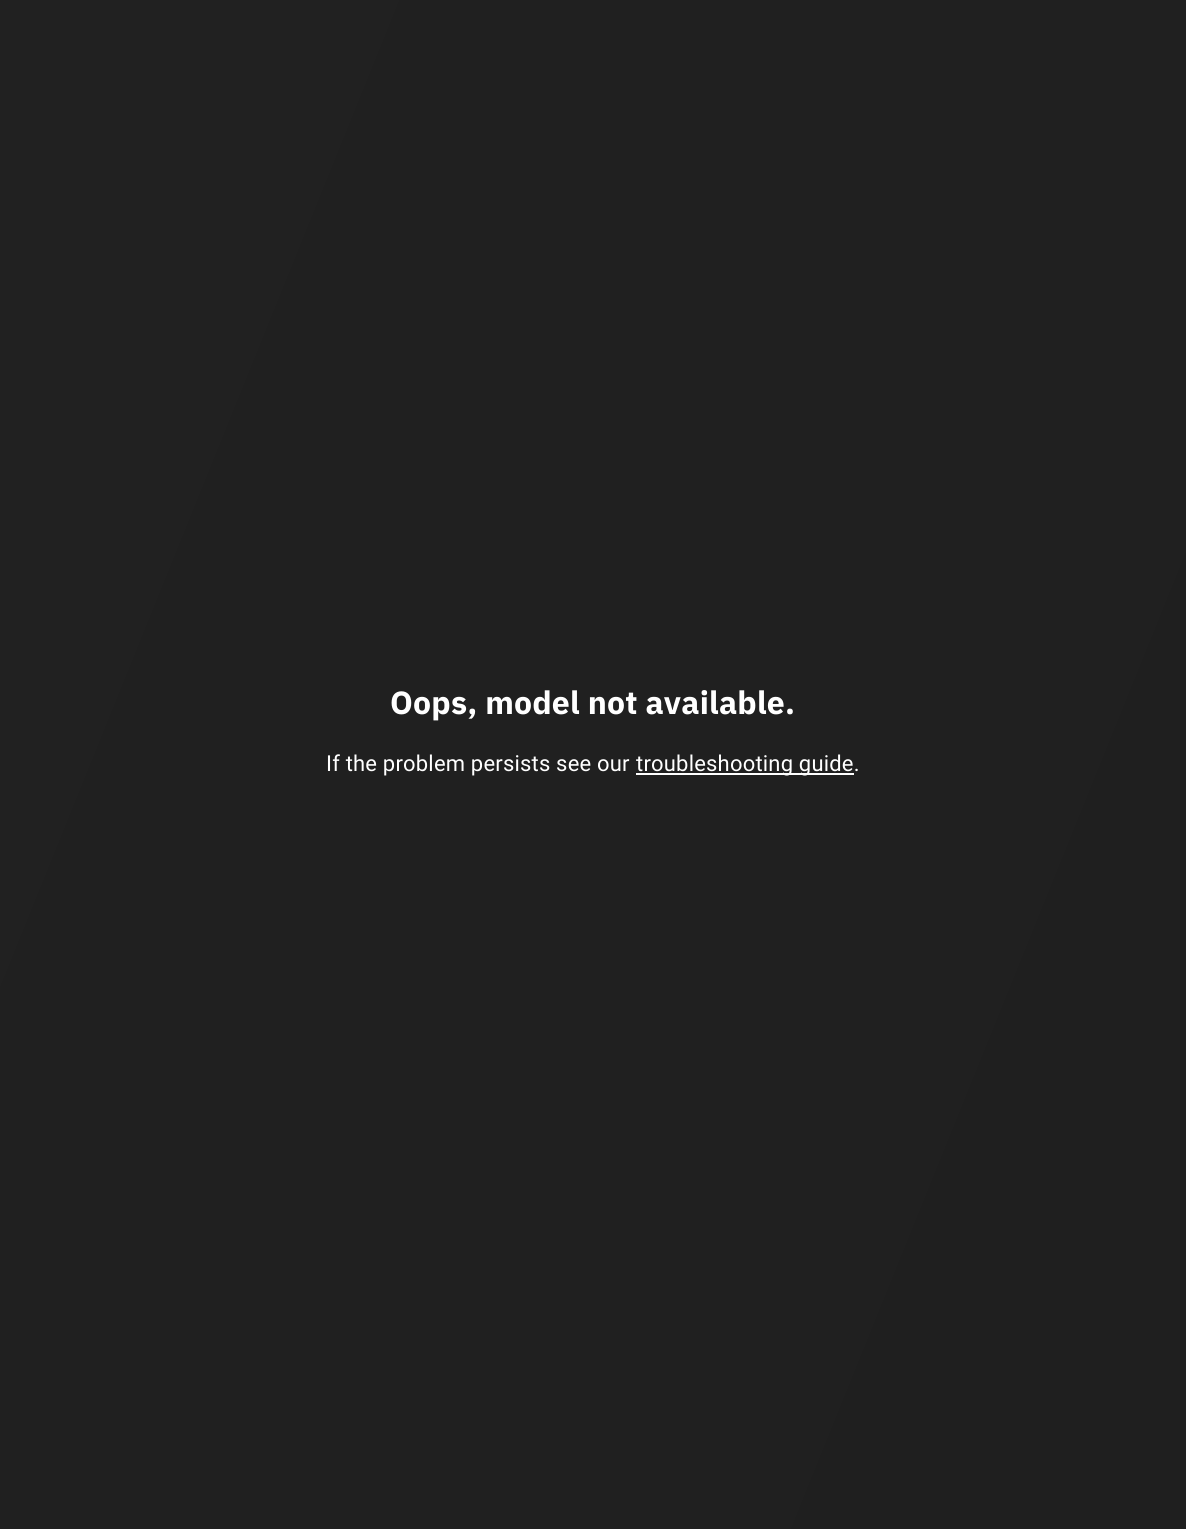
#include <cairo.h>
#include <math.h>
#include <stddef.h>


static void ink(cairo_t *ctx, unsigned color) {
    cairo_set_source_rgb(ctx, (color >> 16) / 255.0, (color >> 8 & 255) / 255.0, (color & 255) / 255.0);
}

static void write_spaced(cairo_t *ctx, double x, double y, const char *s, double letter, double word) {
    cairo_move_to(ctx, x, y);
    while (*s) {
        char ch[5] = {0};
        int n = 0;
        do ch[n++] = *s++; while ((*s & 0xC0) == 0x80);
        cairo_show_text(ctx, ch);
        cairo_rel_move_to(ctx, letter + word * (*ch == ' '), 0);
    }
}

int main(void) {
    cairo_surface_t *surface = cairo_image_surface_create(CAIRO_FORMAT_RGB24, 1186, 1529);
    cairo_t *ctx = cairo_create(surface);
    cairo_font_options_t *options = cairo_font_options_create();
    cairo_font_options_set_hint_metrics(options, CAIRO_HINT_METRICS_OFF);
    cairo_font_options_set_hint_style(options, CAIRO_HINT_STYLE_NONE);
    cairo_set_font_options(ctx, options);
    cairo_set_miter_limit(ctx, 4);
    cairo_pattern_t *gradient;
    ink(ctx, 0xFFFFFF);
    cairo_paint(ctx);
    gradient = cairo_pattern_create_linear(-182, 451, 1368, 1078);
    cairo_pattern_add_color_stop_rgba(gradient, 0, 0.129, 0.129, 0.129, 1);
    cairo_pattern_add_color_stop_rgba(gradient, 1, 0.122, 0.122, 0.122, 1);
    cairo_set_source(ctx, gradient);
    cairo_pattern_destroy(gradient);
    cairo_rectangle(ctx, 0, 0, 1186, 1529);
    cairo_fill(ctx);
    cairo_select_font_face(ctx, "IBM Plex Sans", CAIRO_FONT_SLANT_NORMAL, CAIRO_FONT_WEIGHT_BOLD);
    cairo_set_font_size(ctx, 32);
    ink(ctx, 0xFFFFFF);
    write_spaced(ctx, 390, 714, "Oops, model not available.", 0.2, 0);
    cairo_select_font_face(ctx, "Roboto", CAIRO_FONT_SLANT_NORMAL, CAIRO_FONT_WEIGHT_NORMAL);
    cairo_set_font_size(ctx, 22);
    write_spaced(ctx, 326, 771, "If the problem persists see our", 0.2, 0);
    cairo_rectangle(ctx, 636, 773, 218, 2);
    cairo_fill(ctx);
    write_spaced(ctx, 636, 771, "troubleshooting guide.", 0.2, 0);
    cairo_surface_write_to_png(surface, "image.png");
    cairo_font_options_destroy(options);
    cairo_destroy(ctx);
    cairo_surface_destroy(surface);
    return 0;
}
